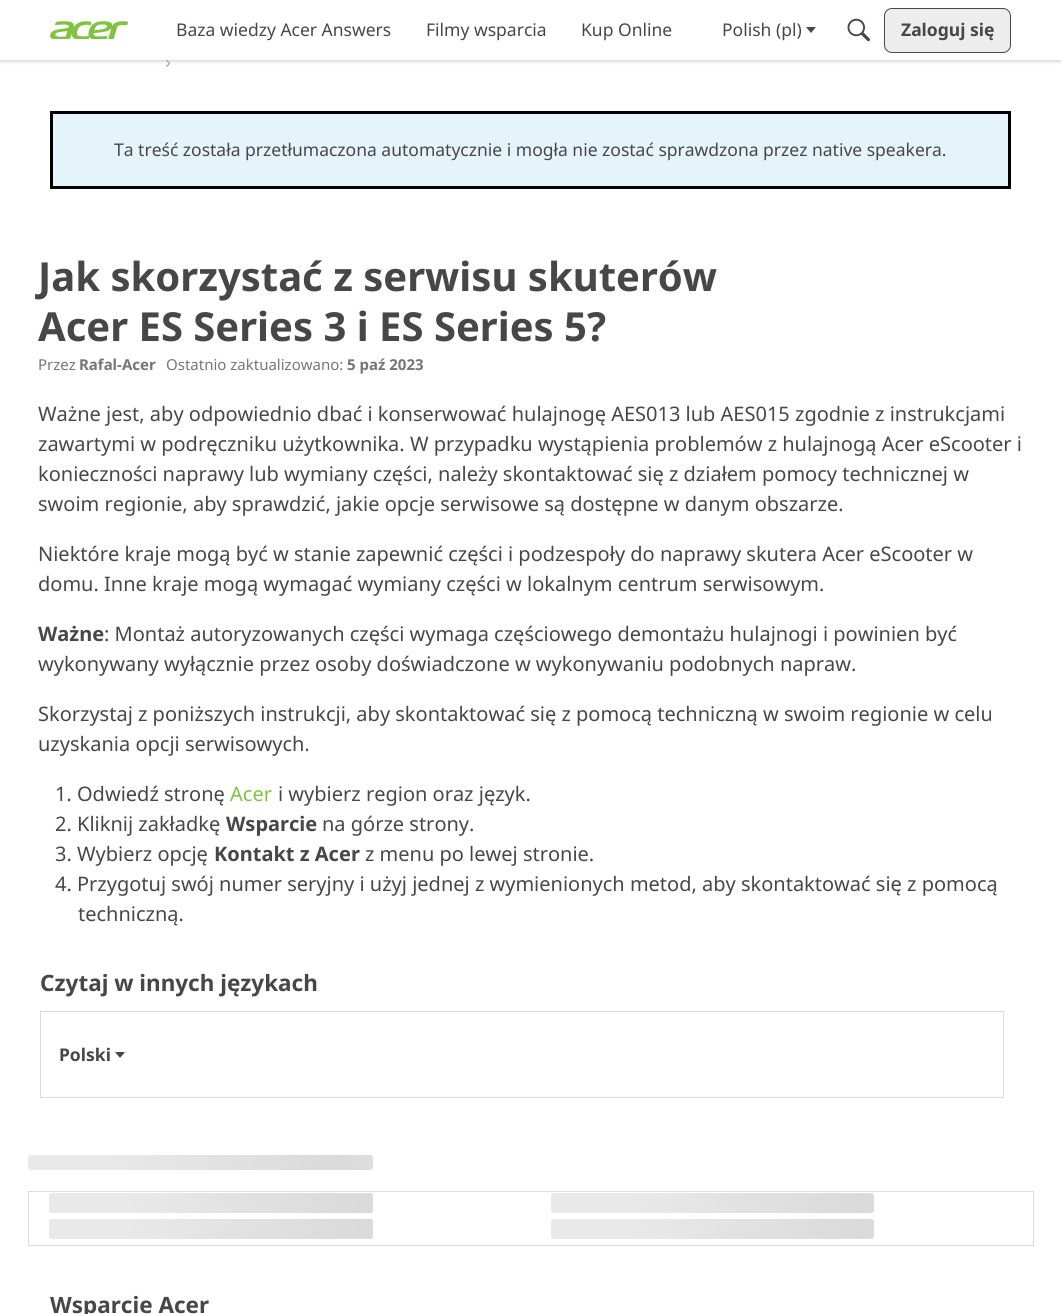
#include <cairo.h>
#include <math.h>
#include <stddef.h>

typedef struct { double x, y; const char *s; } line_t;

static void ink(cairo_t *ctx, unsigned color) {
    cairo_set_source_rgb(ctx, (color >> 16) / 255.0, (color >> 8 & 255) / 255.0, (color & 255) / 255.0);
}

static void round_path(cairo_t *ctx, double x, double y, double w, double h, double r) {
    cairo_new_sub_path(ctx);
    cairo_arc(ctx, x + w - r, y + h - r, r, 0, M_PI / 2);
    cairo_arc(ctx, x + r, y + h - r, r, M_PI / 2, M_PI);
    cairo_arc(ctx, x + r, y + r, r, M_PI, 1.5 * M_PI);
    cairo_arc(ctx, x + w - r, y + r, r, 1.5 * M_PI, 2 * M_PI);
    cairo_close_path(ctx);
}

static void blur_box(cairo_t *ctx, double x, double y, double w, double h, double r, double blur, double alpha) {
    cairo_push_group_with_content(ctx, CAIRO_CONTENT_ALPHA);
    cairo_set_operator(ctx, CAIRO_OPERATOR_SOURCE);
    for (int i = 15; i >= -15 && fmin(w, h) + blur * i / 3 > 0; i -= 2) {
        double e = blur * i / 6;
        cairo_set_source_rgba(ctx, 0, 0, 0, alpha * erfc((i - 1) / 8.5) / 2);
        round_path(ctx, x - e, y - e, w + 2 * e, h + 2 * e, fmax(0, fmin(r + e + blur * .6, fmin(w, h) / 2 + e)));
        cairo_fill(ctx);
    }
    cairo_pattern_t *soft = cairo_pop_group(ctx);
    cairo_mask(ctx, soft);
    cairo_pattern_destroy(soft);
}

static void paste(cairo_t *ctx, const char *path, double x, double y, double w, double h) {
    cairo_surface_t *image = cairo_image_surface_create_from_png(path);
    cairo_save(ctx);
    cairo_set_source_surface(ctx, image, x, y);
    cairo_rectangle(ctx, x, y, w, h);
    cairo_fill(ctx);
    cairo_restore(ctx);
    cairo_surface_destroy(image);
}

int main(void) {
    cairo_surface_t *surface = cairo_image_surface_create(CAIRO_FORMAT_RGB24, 1061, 1314);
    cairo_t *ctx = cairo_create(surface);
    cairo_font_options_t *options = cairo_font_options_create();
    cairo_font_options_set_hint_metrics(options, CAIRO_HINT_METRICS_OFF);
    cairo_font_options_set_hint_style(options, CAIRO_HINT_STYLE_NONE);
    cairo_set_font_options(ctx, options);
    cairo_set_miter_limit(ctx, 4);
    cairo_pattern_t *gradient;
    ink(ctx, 0xFFFFFF);
    cairo_paint(ctx);
    ink(ctx, 0x000000);
    blur_box(ctx, 0, 1, 1061, 60, 0, 2, 0.22);
    ink(ctx, 0xFFFFFF);
    cairo_rectangle(ctx, 0, 0, 1061, 60);
    cairo_fill(ctx);
    paste(ctx, "media/1.png", 50, 21, 78, 18);
    cairo_select_font_face(ctx, "Noto Sans", CAIRO_FONT_SLANT_NORMAL, CAIRO_FONT_WEIGHT_NORMAL);
    cairo_set_font_size(ctx, 17.5);
    ink(ctx, 0x474747);
    {
        static const line_t items[] = {
            {176, 36, "Baza wiedzy Acer Answers"},
            {426, 36, "Filmy wsparcia"},
            {581, 36, "Kup Online"},
            {722, 36, "Polish (pl)"},
        };
        for (size_t i = 0; i < sizeof items / sizeof *items; i++) {
            cairo_move_to(ctx, items[i].x, items[i].y);
            cairo_show_text(ctx, items[i].s);
        }
    }
    cairo_new_path(ctx);
    cairo_move_to(ctx, 806, 27);
    cairo_line_to(ctx, 816, 27);
    cairo_line_to(ctx, 811, 33);
    cairo_close_path(ctx);
    cairo_fill(ctx);
    paste(ctx, "media/2.png", 847, 18, 23, 24);
    ink(ctx, 0xEDEDED);
    round_path(ctx, 884.5, 8.5, 126, 44, 7.5);
    cairo_fill_preserve(ctx);
    ink(ctx, 0x474747);
    cairo_set_line_width(ctx, 1);
    cairo_stroke(ctx);
    cairo_select_font_face(ctx, "Noto Sans", CAIRO_FONT_SLANT_NORMAL, CAIRO_FONT_WEIGHT_BOLD);
    cairo_move_to(ctx, 901, 36);
    cairo_show_text(ctx, "Zaloguj się");
    cairo_select_font_face(ctx, "Liberation Sans", CAIRO_FONT_SLANT_NORMAL, CAIRO_FONT_WEIGHT_NORMAL);
    ink(ctx, 0xA3A3A3);
    cairo_move_to(ctx, 165, 68);
    cairo_show_text(ctx, "›");
    ink(ctx, 0xE5F4FB);
    cairo_rectangle(ctx, 51.5, 112.5, 958, 75);
    cairo_fill_preserve(ctx);
    ink(ctx, 0x000000);
    cairo_set_line_width(ctx, 3);
    cairo_stroke(ctx);
    cairo_select_font_face(ctx, "Noto Sans", CAIRO_FONT_SLANT_NORMAL, CAIRO_FONT_WEIGHT_NORMAL);
    ink(ctx, 0x474747);
    cairo_move_to(ctx, 114, 156);
    cairo_show_text(ctx, "Ta treść została przetłumaczona automatycznie i mogła nie zostać sprawdzona przez native speakera.");
    cairo_select_font_face(ctx, "Noto Sans", CAIRO_FONT_SLANT_NORMAL, CAIRO_FONT_WEIGHT_BOLD);
    cairo_set_font_size(ctx, 40);
    cairo_move_to(ctx, 38, 291);
    cairo_show_text(ctx, "Jak skorzystać z serwisu skuterów");
    cairo_move_to(ctx, 38, 341);
    cairo_show_text(ctx, "Acer ES Series 3 i ES Series 5?");
    cairo_select_font_face(ctx, "Noto Sans", CAIRO_FONT_SLANT_NORMAL, CAIRO_FONT_WEIGHT_NORMAL);
    cairo_set_font_size(ctx, 15);
    ink(ctx, 0x767676);
    cairo_move_to(ctx, 38, 370);
    cairo_show_text(ctx, "Przez");
    cairo_select_font_face(ctx, "Noto Sans", CAIRO_FONT_SLANT_NORMAL, CAIRO_FONT_WEIGHT_BOLD);
    cairo_move_to(ctx, 79, 370);
    cairo_show_text(ctx, "Rafal-Acer");
    cairo_select_font_face(ctx, "Noto Sans", CAIRO_FONT_SLANT_NORMAL, CAIRO_FONT_WEIGHT_NORMAL);
    cairo_move_to(ctx, 166, 370);
    cairo_show_text(ctx, "Ostatnio zaktualizowano:");
    cairo_select_font_face(ctx, "Noto Sans", CAIRO_FONT_SLANT_NORMAL, CAIRO_FONT_WEIGHT_BOLD);
    cairo_move_to(ctx, 347, 370);
    cairo_show_text(ctx, "5 paź 2023");
    cairo_select_font_face(ctx, "Noto Sans", CAIRO_FONT_SLANT_NORMAL, CAIRO_FONT_WEIGHT_NORMAL);
    cairo_set_font_size(ctx, 20);
    ink(ctx, 0x474747);
    {
        static const line_t items[] = {
            {38, 421, "Ważne jest, aby odpowiednio dbać i konserwować hulajnogę AES013 lub AES015 zgodnie z instrukcjami"},
            {38, 451, "zawartymi w podręczniku użytkownika. W przypadku wystąpienia problemów z hulajnogą Acer eScooter i"},
            {38, 481, "konieczności naprawy lub wymiany części, należy skontaktować się z działem pomocy technicznej w"},
            {38, 511, "swoim regionie, aby sprawdzić, jakie opcje serwisowe są dostępne w danym obszarze."},
            {38, 561, "Niektóre kraje mogą być w stanie zapewnić części i podzespoły do naprawy skutera Acer eScooter w"},
            {38, 591, "domu. Inne kraje mogą wymagać wymiany części w lokalnym centrum serwisowym."},
        };
        for (size_t i = 0; i < sizeof items / sizeof *items; i++) {
            cairo_move_to(ctx, items[i].x, items[i].y);
            cairo_show_text(ctx, items[i].s);
        }
    }
    cairo_select_font_face(ctx, "Noto Sans", CAIRO_FONT_SLANT_NORMAL, CAIRO_FONT_WEIGHT_BOLD);
    cairo_move_to(ctx, 38, 641);
    cairo_show_text(ctx, "Ważne");
    cairo_select_font_face(ctx, "Noto Sans", CAIRO_FONT_SLANT_NORMAL, CAIRO_FONT_WEIGHT_NORMAL);
    {
        static const line_t items[] = {
            {104, 641, ": Montaż autoryzowanych części wymaga częściowego demontażu hulajnogi i powinien być"},
            {38, 671, "wykonywany wyłącznie przez osoby doświadczone w wykonywaniu podobnych napraw."},
            {38, 721, "Skorzystaj z poniższych instrukcji, aby skontaktować się z pomocą techniczną w swoim regionie w celu"},
            {38, 751, "uzyskania opcji serwisowych."},
            {55, 801, "1. Odwiedź stronę"},
        };
        for (size_t i = 0; i < sizeof items / sizeof *items; i++) {
            cairo_move_to(ctx, items[i].x, items[i].y);
            cairo_show_text(ctx, items[i].s);
        }
    }
    ink(ctx, 0x80C343);
    cairo_move_to(ctx, 230, 801);
    cairo_show_text(ctx, "Acer");
    ink(ctx, 0x474747);
    cairo_move_to(ctx, 278, 801);
    cairo_show_text(ctx, "i wybierz region oraz język.");
    cairo_move_to(ctx, 55, 831);
    cairo_show_text(ctx, "2. Kliknij zakładkę");
    cairo_select_font_face(ctx, "Noto Sans", CAIRO_FONT_SLANT_NORMAL, CAIRO_FONT_WEIGHT_BOLD);
    cairo_move_to(ctx, 226, 831);
    cairo_show_text(ctx, "Wsparcie");
    cairo_select_font_face(ctx, "Noto Sans", CAIRO_FONT_SLANT_NORMAL, CAIRO_FONT_WEIGHT_NORMAL);
    cairo_move_to(ctx, 322, 831);
    cairo_show_text(ctx, "na górze strony.");
    cairo_move_to(ctx, 55, 861);
    cairo_show_text(ctx, "3. Wybierz opcję");
    cairo_select_font_face(ctx, "Noto Sans", CAIRO_FONT_SLANT_NORMAL, CAIRO_FONT_WEIGHT_BOLD);
    cairo_move_to(ctx, 214, 861);
    cairo_show_text(ctx, "Kontakt z Acer");
    cairo_select_font_face(ctx, "Noto Sans", CAIRO_FONT_SLANT_NORMAL, CAIRO_FONT_WEIGHT_NORMAL);
    {
        static const line_t items[] = {
            {365, 861, "z menu po lewej stronie."},
            {55, 891, "4. Przygotuj swój numer seryjny i użyj jednej z wymienionych metod, aby skontaktować się z pomocą"},
            {78, 921, "techniczną."},
        };
        for (size_t i = 0; i < sizeof items / sizeof *items; i++) {
            cairo_move_to(ctx, items[i].x, items[i].y);
            cairo_show_text(ctx, items[i].s);
        }
    }
    cairo_select_font_face(ctx, "Noto Sans", CAIRO_FONT_SLANT_NORMAL, CAIRO_FONT_WEIGHT_BOLD);
    cairo_set_font_size(ctx, 22.5);
    cairo_move_to(ctx, 40, 991);
    cairo_show_text(ctx, "Czytaj w innych językach");
    cairo_rectangle(ctx, 40.5, 1011.5, 963, 86);
    ink(ctx, 0xDADADA);
    cairo_set_line_width(ctx, 1);
    cairo_stroke(ctx);
    cairo_set_font_size(ctx, 17.5);
    ink(ctx, 0x474747);
    cairo_move_to(ctx, 59, 1061);
    cairo_show_text(ctx, "Polski");
    cairo_new_path(ctx);
    cairo_move_to(ctx, 115, 1052);
    cairo_line_to(ctx, 125, 1052);
    cairo_line_to(ctx, 120, 1058);
    cairo_close_path(ctx);
    cairo_fill(ctx);
    gradient = cairo_pattern_create_linear(28, 1163, 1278, 1163);
    cairo_pattern_add_color_stop_rgba(gradient, 0.06, 0.914, 0.914, 0.914, 1);
    cairo_pattern_add_color_stop_rgba(gradient, 0.25, 0.855, 0.855, 0.855, 1);
    cairo_pattern_add_color_stop_rgba(gradient, 0.34, 0.914, 0.914, 0.914, 1);
    cairo_set_source(ctx, gradient);
    cairo_pattern_destroy(gradient);
    round_path(ctx, 28, 1155, 345, 15, 2.5);
    cairo_fill(ctx);
    cairo_rectangle(ctx, 28.5, 1191.5, 1005, 54);
    ink(ctx, 0xDADADA);
    cairo_stroke(ctx);
    gradient = cairo_pattern_create_linear(49, 1203, 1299, 1203);
    cairo_pattern_add_color_stop_rgba(gradient, 0.06, 0.914, 0.914, 0.914, 1);
    cairo_pattern_add_color_stop_rgba(gradient, 0.25, 0.855, 0.855, 0.855, 1);
    cairo_pattern_add_color_stop_rgba(gradient, 0.34, 0.914, 0.914, 0.914, 1);
    cairo_set_source(ctx, gradient);
    cairo_pattern_destroy(gradient);
    round_path(ctx, 49, 1193, 324, 20, 2.5);
    cairo_fill(ctx);
    gradient = cairo_pattern_create_linear(551, 1203, 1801, 1203);
    cairo_pattern_add_color_stop_rgba(gradient, 0.06, 0.914, 0.914, 0.914, 1);
    cairo_pattern_add_color_stop_rgba(gradient, 0.25, 0.855, 0.855, 0.855, 1);
    cairo_pattern_add_color_stop_rgba(gradient, 0.34, 0.914, 0.914, 0.914, 1);
    cairo_set_source(ctx, gradient);
    cairo_pattern_destroy(gradient);
    round_path(ctx, 551, 1193, 323, 20, 2.5);
    cairo_fill(ctx);
    gradient = cairo_pattern_create_linear(49, 1229, 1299, 1229);
    cairo_pattern_add_color_stop_rgba(gradient, 0.06, 0.914, 0.914, 0.914, 1);
    cairo_pattern_add_color_stop_rgba(gradient, 0.25, 0.855, 0.855, 0.855, 1);
    cairo_pattern_add_color_stop_rgba(gradient, 0.34, 0.914, 0.914, 0.914, 1);
    cairo_set_source(ctx, gradient);
    cairo_pattern_destroy(gradient);
    round_path(ctx, 49, 1219, 324, 20, 2.5);
    cairo_fill(ctx);
    gradient = cairo_pattern_create_linear(551, 1229, 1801, 1229);
    cairo_pattern_add_color_stop_rgba(gradient, 0.06, 0.914, 0.914, 0.914, 1);
    cairo_pattern_add_color_stop_rgba(gradient, 0.25, 0.855, 0.855, 0.855, 1);
    cairo_pattern_add_color_stop_rgba(gradient, 0.34, 0.914, 0.914, 0.914, 1);
    cairo_set_source(ctx, gradient);
    cairo_pattern_destroy(gradient);
    round_path(ctx, 551, 1219, 323, 20, 2.5);
    cairo_fill(ctx);
    cairo_set_font_size(ctx, 22.5);
    ink(ctx, 0x474747);
    cairo_move_to(ctx, 50, 1313);
    cairo_show_text(ctx, "Wsparcie Acer");
    cairo_surface_write_to_png(surface, "image.png");
    cairo_font_options_destroy(options);
    cairo_destroy(ctx);
    cairo_surface_destroy(surface);
    return 0;
}
